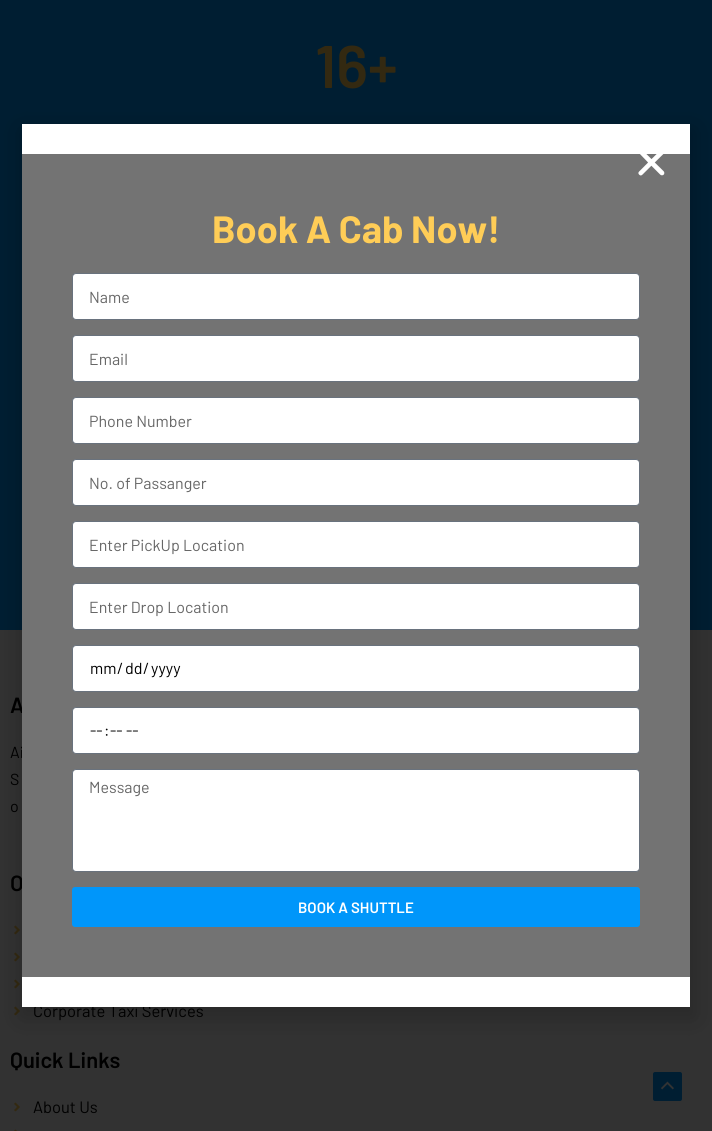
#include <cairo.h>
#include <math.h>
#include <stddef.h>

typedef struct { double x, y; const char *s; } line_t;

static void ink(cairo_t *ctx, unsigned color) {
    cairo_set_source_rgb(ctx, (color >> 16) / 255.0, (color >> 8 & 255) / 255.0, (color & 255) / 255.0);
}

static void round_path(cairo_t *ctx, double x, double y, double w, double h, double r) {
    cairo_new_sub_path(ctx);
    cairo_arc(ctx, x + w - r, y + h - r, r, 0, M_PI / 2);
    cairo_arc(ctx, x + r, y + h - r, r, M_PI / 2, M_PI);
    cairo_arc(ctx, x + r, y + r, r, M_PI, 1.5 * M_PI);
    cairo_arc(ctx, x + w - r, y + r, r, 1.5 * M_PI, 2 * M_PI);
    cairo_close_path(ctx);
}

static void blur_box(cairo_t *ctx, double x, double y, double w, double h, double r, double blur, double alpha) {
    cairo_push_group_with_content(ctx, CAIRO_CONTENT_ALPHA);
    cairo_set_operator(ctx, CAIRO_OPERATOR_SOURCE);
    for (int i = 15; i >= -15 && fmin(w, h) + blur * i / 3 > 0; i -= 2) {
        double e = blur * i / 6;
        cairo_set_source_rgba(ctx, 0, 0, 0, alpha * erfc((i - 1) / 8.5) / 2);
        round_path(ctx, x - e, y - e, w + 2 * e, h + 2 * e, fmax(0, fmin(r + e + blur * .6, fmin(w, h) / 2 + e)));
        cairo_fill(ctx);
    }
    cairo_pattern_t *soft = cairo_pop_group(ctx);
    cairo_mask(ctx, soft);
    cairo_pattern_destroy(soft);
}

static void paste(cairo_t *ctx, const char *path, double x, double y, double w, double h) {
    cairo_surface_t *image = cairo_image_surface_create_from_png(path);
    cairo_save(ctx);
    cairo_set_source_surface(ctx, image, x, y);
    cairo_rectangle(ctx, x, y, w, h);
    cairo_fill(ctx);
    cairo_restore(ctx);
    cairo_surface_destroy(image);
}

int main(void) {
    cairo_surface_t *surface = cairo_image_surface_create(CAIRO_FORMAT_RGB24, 712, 1131);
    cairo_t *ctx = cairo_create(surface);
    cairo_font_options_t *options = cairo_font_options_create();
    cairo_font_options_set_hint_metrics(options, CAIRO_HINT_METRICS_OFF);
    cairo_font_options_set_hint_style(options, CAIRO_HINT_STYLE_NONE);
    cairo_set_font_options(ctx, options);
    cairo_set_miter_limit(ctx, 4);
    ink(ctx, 0x001E32);
    cairo_paint(ctx);
    cairo_select_font_face(ctx, "Barlow SemiBold", CAIRO_FONT_SLANT_NORMAL, CAIRO_FONT_WEIGHT_NORMAL);
    cairo_set_font_size(ctx, 60);
    ink(ctx, 0x332911);
    cairo_move_to(ctx, 315, 88);
    cairo_show_text(ctx, "16+");
    ink(ctx, 0x323232);
    cairo_rectangle(ctx, 0, 630, 712, 501);
    cairo_fill(ctx);
    cairo_set_font_size(ctx, 22);
    ink(ctx, 0x000000);
    cairo_move_to(ctx, 10, 713);
    cairo_show_text(ctx, "A");
    cairo_select_font_face(ctx, "Barlow", CAIRO_FONT_SLANT_NORMAL, CAIRO_FONT_WEIGHT_NORMAL);
    cairo_set_font_size(ctx, 16);
    {
        static const line_t items[] = {
            {10, 758, "Ai"},
            {10, 785, "S"},
            {10, 812, "o"},
        };
        for (size_t i = 0; i < sizeof items / sizeof *items; i++) {
            cairo_move_to(ctx, items[i].x, items[i].y);
            cairo_show_text(ctx, items[i].s);
        }
    }
    cairo_select_font_face(ctx, "Barlow SemiBold", CAIRO_FONT_SLANT_NORMAL, CAIRO_FONT_WEIGHT_NORMAL);
    cairo_set_font_size(ctx, 22);
    cairo_move_to(ctx, 10, 891);
    cairo_show_text(ctx, "O");
    paste(ctx, "media/1.png", 14, 925, 6, 10);
    paste(ctx, "media/1.png", 14, 952, 6, 10);
    paste(ctx, "media/1.png", 14, 979, 6, 10);
    paste(ctx, "media/1.png", 14, 1006, 6, 10);
    cairo_select_font_face(ctx, "Barlow", CAIRO_FONT_SLANT_NORMAL, CAIRO_FONT_WEIGHT_NORMAL);
    cairo_set_font_size(ctx, 16.5);
    cairo_move_to(ctx, 33, 1017);
    cairo_show_text(ctx, "Corporate Taxi Services");
    cairo_select_font_face(ctx, "Barlow SemiBold", CAIRO_FONT_SLANT_NORMAL, CAIRO_FONT_WEIGHT_NORMAL);
    cairo_set_font_size(ctx, 22);
    cairo_move_to(ctx, 10, 1068);
    cairo_show_text(ctx, "Quick Links");
    paste(ctx, "media/1.png", 14, 1102, 6, 10);
    cairo_select_font_face(ctx, "Barlow", CAIRO_FONT_SLANT_NORMAL, CAIRO_FONT_WEIGHT_NORMAL);
    cairo_set_font_size(ctx, 16.5);
    cairo_move_to(ctx, 33, 1113);
    cairo_show_text(ctx, "About Us");
    paste(ctx, "media/2.png", 14, 1129, 3, 2);
    ink(ctx, 0x000000);
    blur_box(ctx, 21, 129, 674, 889, 0, 11.5, 0.2);
    ink(ctx, 0xFFFFFF);
    cairo_rectangle(ctx, 22, 124, 668, 883);
    cairo_fill(ctx);
    ink(ctx, 0x737373);
    cairo_rectangle(ctx, 22, 154, 668, 823);
    cairo_fill(ctx);
    paste(ctx, "media/3.png", 638, 154, 27, 22);
    cairo_select_font_face(ctx, "Barlow", CAIRO_FONT_SLANT_NORMAL, CAIRO_FONT_WEIGHT_BOLD);
    cairo_set_font_size(ctx, 38);
    ink(ctx, 0xFFCD57);
    cairo_move_to(ctx, 212, 243);
    cairo_show_text(ctx, "Book A Cab Now!");
    ink(ctx, 0xFFFFFF);
    round_path(ctx, 72.5, 273.5, 567, 46, 3.5);
    cairo_fill_preserve(ctx);
    ink(ctx, 0x69727D);
    cairo_set_line_width(ctx, 1);
    cairo_stroke(ctx);
    cairo_select_font_face(ctx, "Barlow", CAIRO_FONT_SLANT_NORMAL, CAIRO_FONT_WEIGHT_NORMAL);
    cairo_set_font_size(ctx, 16);
    ink(ctx, 0x666666);
    cairo_move_to(ctx, 89, 303);
    cairo_show_text(ctx, "Name");
    ink(ctx, 0xFFFFFF);
    round_path(ctx, 72.5, 335.5, 567, 46, 3.5);
    cairo_fill_preserve(ctx);
    ink(ctx, 0x69727D);
    cairo_stroke(ctx);
    ink(ctx, 0x666666);
    cairo_move_to(ctx, 89, 365);
    cairo_show_text(ctx, "Email");
    ink(ctx, 0xFFFFFF);
    round_path(ctx, 72.5, 397.5, 567, 46, 3.5);
    cairo_fill_preserve(ctx);
    ink(ctx, 0x69727D);
    cairo_stroke(ctx);
    ink(ctx, 0x666666);
    cairo_move_to(ctx, 89, 427);
    cairo_show_text(ctx, "Phone Number");
    ink(ctx, 0xFFFFFF);
    round_path(ctx, 72.5, 459.5, 567, 46, 3.5);
    cairo_fill_preserve(ctx);
    ink(ctx, 0x69727D);
    cairo_stroke(ctx);
    ink(ctx, 0x666666);
    cairo_move_to(ctx, 89, 489);
    cairo_show_text(ctx, "No. of Passanger");
    ink(ctx, 0xFFFFFF);
    round_path(ctx, 72.5, 521.5, 567, 46, 3.5);
    cairo_fill_preserve(ctx);
    ink(ctx, 0x69727D);
    cairo_stroke(ctx);
    ink(ctx, 0x666666);
    cairo_move_to(ctx, 89, 551);
    cairo_show_text(ctx, "Enter PickUp Location");
    ink(ctx, 0xFFFFFF);
    round_path(ctx, 72.5, 583.5, 567, 46, 3.5);
    cairo_fill_preserve(ctx);
    ink(ctx, 0x69727D);
    cairo_stroke(ctx);
    ink(ctx, 0x666666);
    cairo_move_to(ctx, 89, 613);
    cairo_show_text(ctx, "Enter Drop Location");
    ink(ctx, 0xFFFFFF);
    round_path(ctx, 72.5, 645.5, 567, 46, 3.5);
    cairo_fill_preserve(ctx);
    ink(ctx, 0x69727D);
    cairo_stroke(ctx);
    ink(ctx, 0x000000);
    {
        static const line_t items[] = {
            {90, 674, "mm"},
            {117, 674, "/"},
            {125, 674, "dd"},
            {143, 674, "/"},
            {151, 674, "yyyy"},
        };
        for (size_t i = 0; i < sizeof items / sizeof *items; i++) {
            cairo_move_to(ctx, items[i].x, items[i].y);
            cairo_show_text(ctx, items[i].s);
        }
    }
    ink(ctx, 0xFFFFFF);
    round_path(ctx, 72.5, 707.5, 567, 46, 3.5);
    cairo_fill_preserve(ctx);
    ink(ctx, 0x69727D);
    cairo_stroke(ctx);
    ink(ctx, 0x000000);
    {
        static const line_t items[] = {
            {90, 736, "--"},
            {104, 736, ":"},
            {110, 736, "--"},
            {126, 736, "--"},
        };
        for (size_t i = 0; i < sizeof items / sizeof *items; i++) {
            cairo_move_to(ctx, items[i].x, items[i].y);
            cairo_show_text(ctx, items[i].s);
        }
    }
    ink(ctx, 0xFFFFFF);
    round_path(ctx, 72.5, 769.5, 567, 102, 3.5);
    cairo_fill_preserve(ctx);
    ink(ctx, 0x69727D);
    cairo_stroke(ctx);
    ink(ctx, 0x666666);
    cairo_move_to(ctx, 89, 793);
    cairo_show_text(ctx, "Message");
    ink(ctx, 0x0096FA);
    round_path(ctx, 72, 887, 568, 40, 3);
    cairo_fill(ctx);
    cairo_select_font_face(ctx, "Barlow SemiBold", CAIRO_FONT_SLANT_NORMAL, CAIRO_FONT_WEIGHT_NORMAL);
    cairo_set_font_size(ctx, 15);
    ink(ctx, 0xFFFFFF);
    cairo_move_to(ctx, 298, 913);
    cairo_show_text(ctx, "BOOK A SHUTTLE");
    ink(ctx, 0x001E32);
    round_path(ctx, 653, 1072, 29, 29, 2);
    cairo_fill(ctx);
    paste(ctx, "media/4.png", 661, 1081, 13, 9);
    cairo_surface_write_to_png(surface, "image.png");
    cairo_font_options_destroy(options);
    cairo_destroy(ctx);
    cairo_surface_destroy(surface);
    return 0;
}
